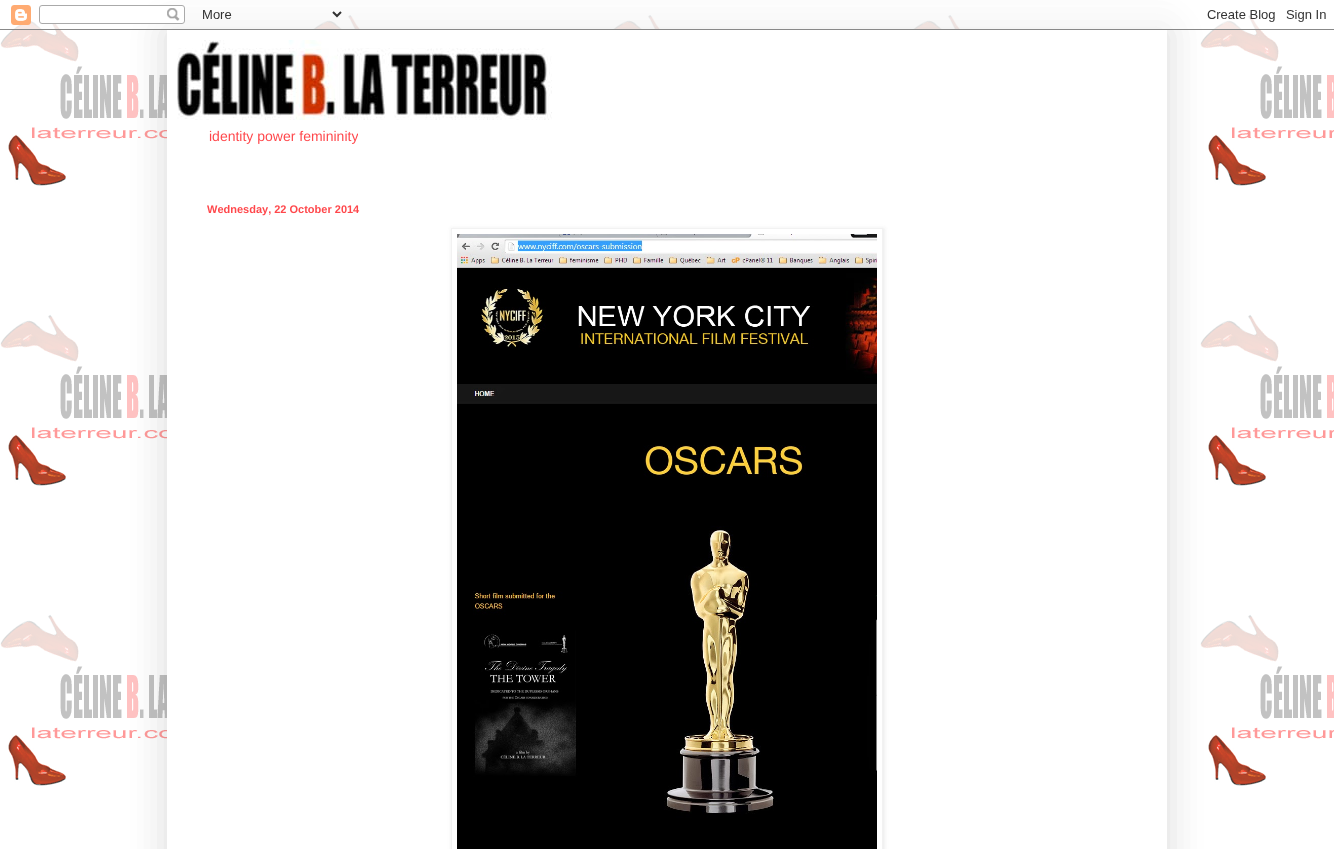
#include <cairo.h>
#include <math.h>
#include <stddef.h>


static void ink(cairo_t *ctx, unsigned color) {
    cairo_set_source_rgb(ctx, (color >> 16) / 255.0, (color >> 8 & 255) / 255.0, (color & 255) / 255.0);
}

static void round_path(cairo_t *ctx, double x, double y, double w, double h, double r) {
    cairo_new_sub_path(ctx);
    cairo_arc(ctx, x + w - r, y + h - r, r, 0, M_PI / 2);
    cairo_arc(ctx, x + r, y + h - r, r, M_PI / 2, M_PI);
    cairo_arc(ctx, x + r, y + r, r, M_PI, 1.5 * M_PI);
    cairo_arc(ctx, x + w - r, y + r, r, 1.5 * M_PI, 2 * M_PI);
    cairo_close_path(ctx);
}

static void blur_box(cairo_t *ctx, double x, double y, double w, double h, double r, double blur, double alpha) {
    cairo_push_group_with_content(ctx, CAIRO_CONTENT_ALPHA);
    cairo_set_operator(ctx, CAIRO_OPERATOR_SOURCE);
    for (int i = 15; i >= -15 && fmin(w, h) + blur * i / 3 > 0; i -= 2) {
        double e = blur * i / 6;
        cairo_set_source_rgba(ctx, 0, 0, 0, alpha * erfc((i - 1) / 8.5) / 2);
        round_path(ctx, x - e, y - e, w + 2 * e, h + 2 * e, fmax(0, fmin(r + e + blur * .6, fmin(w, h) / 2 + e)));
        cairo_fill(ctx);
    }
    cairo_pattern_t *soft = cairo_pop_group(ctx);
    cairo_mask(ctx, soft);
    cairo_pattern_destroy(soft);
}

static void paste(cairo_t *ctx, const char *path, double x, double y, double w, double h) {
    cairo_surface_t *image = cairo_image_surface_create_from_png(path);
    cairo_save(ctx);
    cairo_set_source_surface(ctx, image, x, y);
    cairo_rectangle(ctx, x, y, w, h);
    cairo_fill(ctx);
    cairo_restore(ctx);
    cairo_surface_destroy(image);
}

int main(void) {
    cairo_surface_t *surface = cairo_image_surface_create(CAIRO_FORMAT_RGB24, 1334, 849);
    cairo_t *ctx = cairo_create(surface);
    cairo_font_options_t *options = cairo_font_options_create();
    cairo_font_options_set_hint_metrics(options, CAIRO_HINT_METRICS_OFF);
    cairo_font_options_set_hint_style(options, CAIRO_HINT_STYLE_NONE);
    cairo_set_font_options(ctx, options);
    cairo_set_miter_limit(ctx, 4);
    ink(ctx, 0xFFFFFF);
    cairo_paint(ctx);
    paste(ctx, "media/1.png", 0, 15, 1334, 834);
    ink(ctx, 0x000000);
    blur_box(ctx, 167, 30, 1000, 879, 0, 20, 0.15);
    paste(ctx, "media/2.png", 0, 5, 1334, 25);
    ink(ctx, 0xFFFFFF);
    cairo_rectangle(ctx, 167, 30, 1000, 819);
    cairo_fill(ctx);
    paste(ctx, "media/3.png", 177, 40, 375, 80);
    cairo_select_font_face(ctx, "Liberation Sans", CAIRO_FONT_SLANT_NORMAL, CAIRO_FONT_WEIGHT_NORMAL);
    cairo_set_font_size(ctx, 14);
    ink(ctx, 0xFF474B);
    cairo_move_to(ctx, 209, 141);
    cairo_show_text(ctx, "identity power femininity");
    cairo_select_font_face(ctx, "Liberation Sans", CAIRO_FONT_SLANT_NORMAL, CAIRO_FONT_WEIGHT_BOLD);
    cairo_set_font_size(ctx, 11);
    cairo_move_to(ctx, 207, 213);
    cairo_show_text(ctx, "Wednesday, 22 October 2014");
    cairo_save(ctx);
    cairo_set_fill_rule(ctx, CAIRO_FILL_RULE_EVEN_ODD);
    cairo_new_path(ctx);
    cairo_move_to(ctx, 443, 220);
    cairo_line_to(ctx, 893, 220);
    cairo_line_to(ctx, 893, 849);
    cairo_line_to(ctx, 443, 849);
    cairo_close_path(ctx);
    cairo_move_to(ctx, 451, 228);
    cairo_line_to(ctx, 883, 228);
    cairo_line_to(ctx, 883, 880);
    cairo_line_to(ctx, 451, 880);
    cairo_close_path(ctx);
    cairo_clip(ctx);
    ink(ctx, 0x000000);
    blur_box(ctx, 452, 229, 432, 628, 0, 2.5, 0.1);
    cairo_restore(ctx);
    cairo_rectangle(ctx, 451.5, 228.5, 431, 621);
    ink(ctx, 0xF2F2F2);
    cairo_set_line_width(ctx, 1);
    cairo_stroke(ctx);
    paste(ctx, "media/4.png", 457, 234, 420, 615);
    cairo_surface_write_to_png(surface, "image.png");
    cairo_font_options_destroy(options);
    cairo_destroy(ctx);
    cairo_surface_destroy(surface);
    return 0;
}
